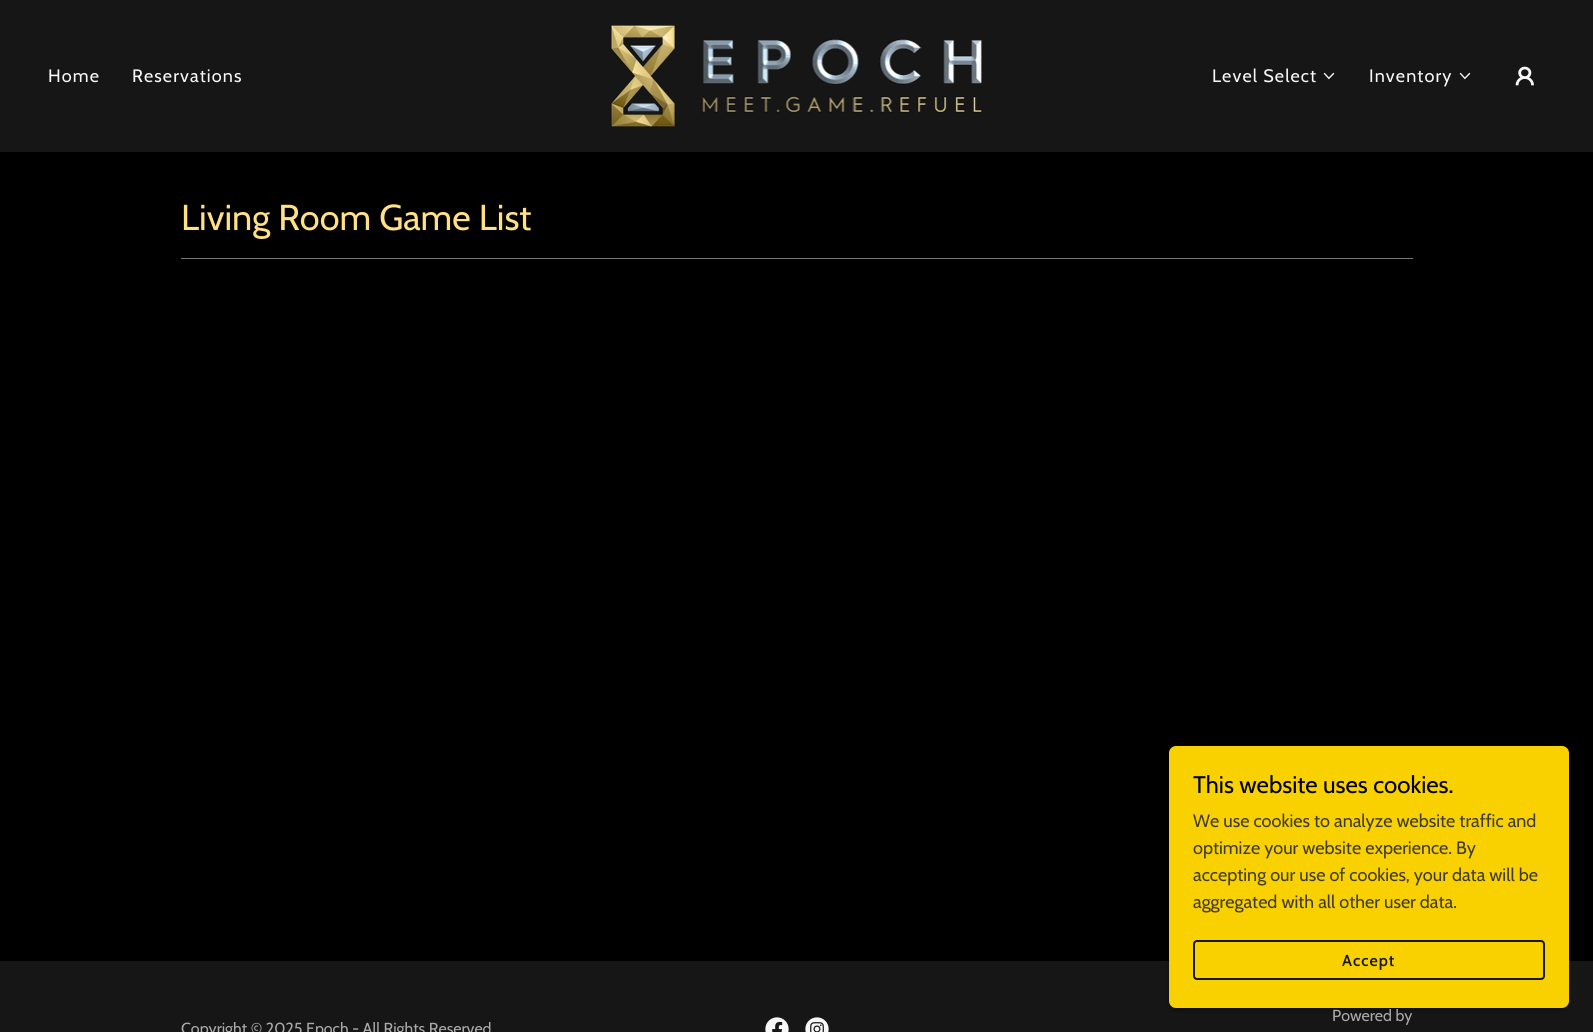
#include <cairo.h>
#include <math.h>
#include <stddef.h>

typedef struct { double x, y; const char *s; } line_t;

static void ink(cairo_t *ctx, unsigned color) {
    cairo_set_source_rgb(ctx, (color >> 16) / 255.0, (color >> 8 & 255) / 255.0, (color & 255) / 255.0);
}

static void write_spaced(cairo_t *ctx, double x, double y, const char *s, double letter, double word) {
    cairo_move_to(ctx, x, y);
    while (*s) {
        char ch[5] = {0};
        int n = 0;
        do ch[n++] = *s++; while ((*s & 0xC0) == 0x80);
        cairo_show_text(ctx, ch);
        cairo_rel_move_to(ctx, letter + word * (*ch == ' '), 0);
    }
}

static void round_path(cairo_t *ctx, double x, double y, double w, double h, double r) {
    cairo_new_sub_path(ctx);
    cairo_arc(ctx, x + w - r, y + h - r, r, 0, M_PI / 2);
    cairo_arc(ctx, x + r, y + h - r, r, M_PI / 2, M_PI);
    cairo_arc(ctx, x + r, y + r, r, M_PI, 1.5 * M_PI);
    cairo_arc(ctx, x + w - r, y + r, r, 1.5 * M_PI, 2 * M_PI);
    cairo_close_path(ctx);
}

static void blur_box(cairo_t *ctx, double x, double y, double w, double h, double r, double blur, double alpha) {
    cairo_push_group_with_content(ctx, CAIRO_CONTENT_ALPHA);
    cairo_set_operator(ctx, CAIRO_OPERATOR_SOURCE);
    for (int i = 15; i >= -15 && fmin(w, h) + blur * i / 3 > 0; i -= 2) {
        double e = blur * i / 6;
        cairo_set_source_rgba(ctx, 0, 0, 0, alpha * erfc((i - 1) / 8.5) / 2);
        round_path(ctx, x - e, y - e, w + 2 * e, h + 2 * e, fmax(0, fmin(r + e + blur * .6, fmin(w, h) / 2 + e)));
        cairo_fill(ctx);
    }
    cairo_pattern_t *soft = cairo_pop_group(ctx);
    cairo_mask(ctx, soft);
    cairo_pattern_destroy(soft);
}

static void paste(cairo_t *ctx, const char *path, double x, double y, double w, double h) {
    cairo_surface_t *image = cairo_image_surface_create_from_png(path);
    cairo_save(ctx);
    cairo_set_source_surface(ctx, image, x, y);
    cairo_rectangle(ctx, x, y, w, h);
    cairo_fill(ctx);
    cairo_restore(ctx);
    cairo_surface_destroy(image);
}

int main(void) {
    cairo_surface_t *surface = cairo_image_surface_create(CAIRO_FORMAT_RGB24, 1593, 1032);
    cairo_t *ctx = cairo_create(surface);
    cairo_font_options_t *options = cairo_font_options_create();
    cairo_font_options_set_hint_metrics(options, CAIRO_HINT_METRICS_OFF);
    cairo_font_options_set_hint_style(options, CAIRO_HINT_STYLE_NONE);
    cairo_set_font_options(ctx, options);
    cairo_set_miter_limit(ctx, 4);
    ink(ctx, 0x161616);
    cairo_paint(ctx);
    cairo_select_font_face(ctx, "Cabin", CAIRO_FONT_SLANT_NORMAL, CAIRO_FONT_WEIGHT_NORMAL);
    cairo_set_font_size(ctx, 18);
    ink(ctx, 0xF7F7F7);
    write_spaced(ctx, 48, 82, "Home", 1.1, 0);
    write_spaced(ctx, 132, 82, "Reservations", 1.1, 0);
    paste(ctx, "media/1.png", 610, 25, 372, 103);
    write_spaced(ctx, 1212, 82, "Level Select", 1.1, 0);
    paste(ctx, "media/2.png", 1323, 72, 12, 8);
    write_spaced(ctx, 1369, 82, "Inventory", 1.1, 0);
    paste(ctx, "media/2.png", 1459, 72, 12, 8);
    paste(ctx, "media/3.png", 1515, 66, 19, 20);
    ink(ctx, 0x000000);
    cairo_rectangle(ctx, 0, 152, 1593, 809);
    cairo_fill(ctx);
    cairo_set_font_size(ctx, 36);
    ink(ctx, 0xFFE085);
    cairo_move_to(ctx, 181, 230);
    cairo_show_text(ctx, "Living Room Game List");
    ink(ctx, 0x777777);
    cairo_rectangle(ctx, 181, 258, 1232, 1);
    cairo_fill(ctx);
    ink(ctx, 0x000000);
    blur_box(ctx, 1169, 748, 400, 262, 7, 3, 0.3);
    ink(ctx, 0xFAD100);
    round_path(ctx, 1169, 746, 400, 262, 7);
    cairo_fill(ctx);
    cairo_set_font_size(ctx, 24);
    ink(ctx, 0x000000);
    cairo_move_to(ctx, 1193, 793);
    cairo_show_text(ctx, "This website uses cookies.");
    cairo_set_font_size(ctx, 18);
    ink(ctx, 0x403B30);
    {
        static const line_t items[] = {
            {1193, 827, "We use cookies to analyze website traffic and"},
            {1193, 854, "optimize your website experience. By"},
            {1193, 881, "accepting our use of cookies, your data will be"},
            {1193, 908, "aggregated with all other user data."},
        };
        for (size_t i = 0; i < sizeof items / sizeof *items; i++) {
            cairo_move_to(ctx, items[i].x, items[i].y);
            cairo_show_text(ctx, items[i].s);
        }
    }
    round_path(ctx, 1194, 941, 350, 38, 3);
    ink(ctx, 0x161616);
    cairo_stroke(ctx);
    cairo_select_font_face(ctx, "Cabin SemiBold", CAIRO_FONT_SLANT_NORMAL, CAIRO_FONT_WEIGHT_NORMAL);
    cairo_set_font_size(ctx, 16);
    write_spaced(ctx, 1342, 966, "Accept", 1, 0);
    cairo_select_font_face(ctx, "Cabin", CAIRO_FONT_SLANT_NORMAL, CAIRO_FONT_WEIGHT_NORMAL);
    ink(ctx, 0xA9A9A9);
    cairo_move_to(ctx, 181, 1034);
    cairo_show_text(ctx, "Copyright © 2025 Epoch - All Rights Reserved");
    paste(ctx, "media/4.png", 765, 1017, 24, 15);
    paste(ctx, "media/5.png", 805, 1017, 24, 15);
    cairo_move_to(ctx, 1332, 1021);
    cairo_show_text(ctx, "Powered by");
    cairo_surface_write_to_png(surface, "image.png");
    cairo_font_options_destroy(options);
    cairo_destroy(ctx);
    cairo_surface_destroy(surface);
    return 0;
}
